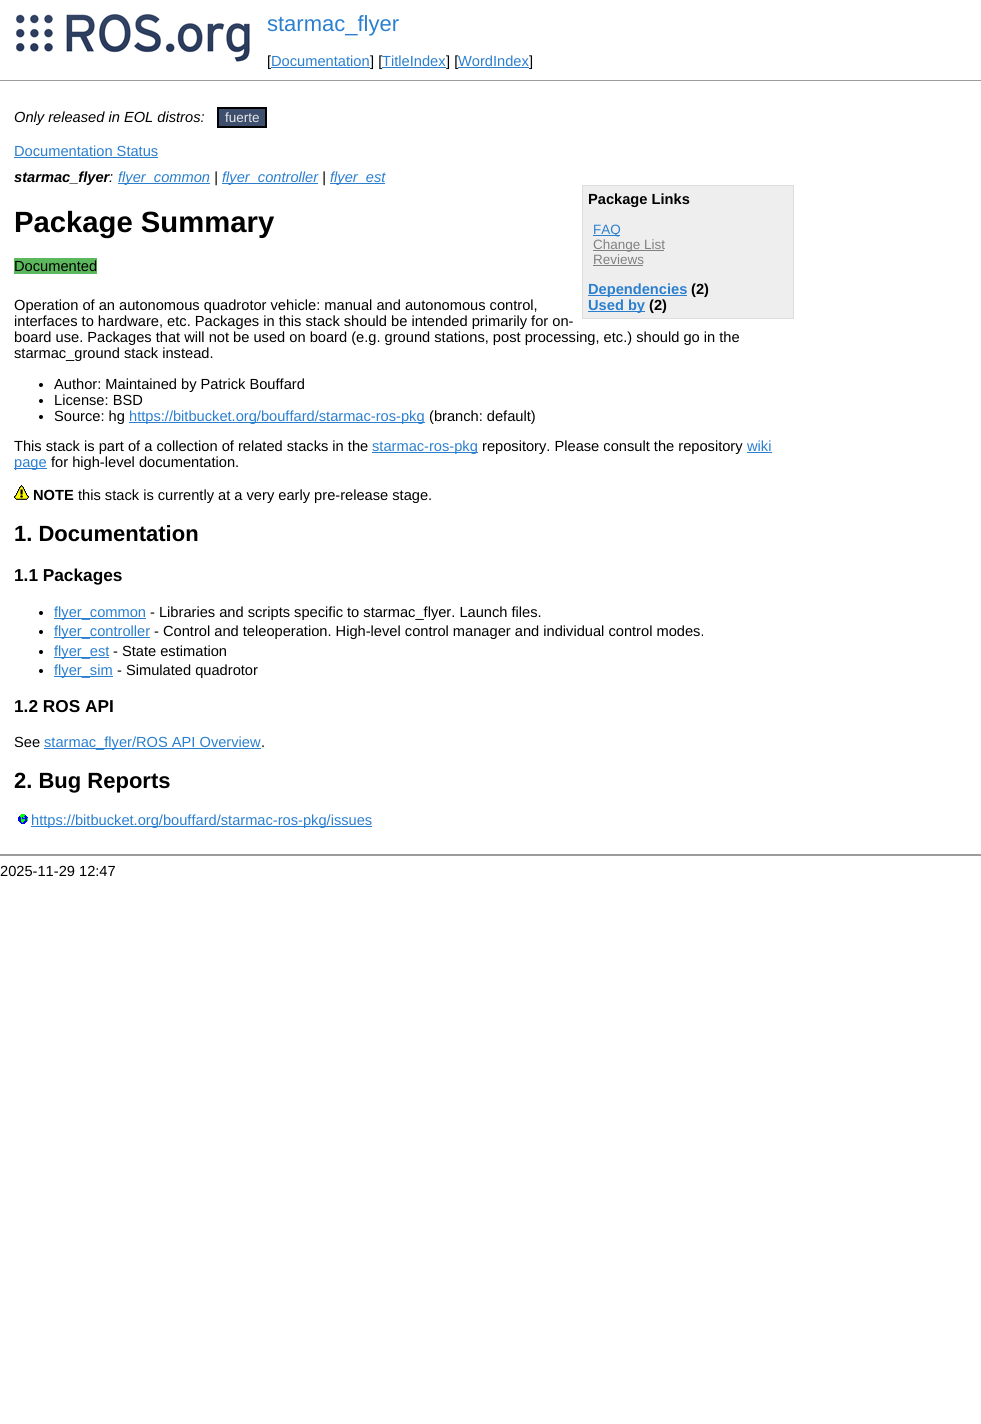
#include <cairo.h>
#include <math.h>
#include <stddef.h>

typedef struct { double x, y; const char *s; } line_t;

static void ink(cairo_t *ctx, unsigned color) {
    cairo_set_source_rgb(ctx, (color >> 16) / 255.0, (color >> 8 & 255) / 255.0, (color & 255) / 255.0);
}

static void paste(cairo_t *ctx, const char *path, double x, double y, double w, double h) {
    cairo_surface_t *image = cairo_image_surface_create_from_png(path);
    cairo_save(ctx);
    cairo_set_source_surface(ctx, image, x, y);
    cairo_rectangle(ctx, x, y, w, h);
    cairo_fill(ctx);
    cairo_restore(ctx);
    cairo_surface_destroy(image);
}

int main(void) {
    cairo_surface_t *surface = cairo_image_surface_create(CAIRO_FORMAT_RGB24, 981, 1424);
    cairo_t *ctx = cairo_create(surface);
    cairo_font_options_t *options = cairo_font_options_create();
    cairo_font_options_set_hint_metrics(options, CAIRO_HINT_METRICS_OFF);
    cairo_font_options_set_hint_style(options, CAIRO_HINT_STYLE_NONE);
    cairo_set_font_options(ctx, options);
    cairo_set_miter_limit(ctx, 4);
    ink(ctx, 0xFFFFFF);
    cairo_paint(ctx);
    paste(ctx, "media/1.png", 16, 14, 234, 48);
    cairo_select_font_face(ctx, "Liberation Sans", CAIRO_FONT_SLANT_NORMAL, CAIRO_FONT_WEIGHT_NORMAL);
    cairo_set_font_size(ctx, 22);
    ink(ctx, 0x2B7FCF);
    cairo_move_to(ctx, 267, 31);
    cairo_show_text(ctx, "starmac_flyer");
    cairo_set_font_size(ctx, 14.65);
    ink(ctx, 0x000000);
    cairo_move_to(ctx, 267, 66);
    cairo_show_text(ctx, "[");
    ink(ctx, 0x2B7FCF);
    cairo_move_to(ctx, 271, 66);
    cairo_show_text(ctx, "Documentation");
    cairo_rectangle(ctx, 271, 67, 99, 1);
    cairo_fill(ctx);
    ink(ctx, 0x000000);
    cairo_move_to(ctx, 370, 66);
    cairo_show_text(ctx, "] [");
    ink(ctx, 0x2B7FCF);
    cairo_move_to(ctx, 382, 66);
    cairo_show_text(ctx, "TitleIndex");
    cairo_rectangle(ctx, 382, 67, 64, 1);
    cairo_fill(ctx);
    ink(ctx, 0x000000);
    cairo_move_to(ctx, 446, 66);
    cairo_show_text(ctx, "] [");
    ink(ctx, 0x2B7FCF);
    cairo_move_to(ctx, 458, 66);
    cairo_show_text(ctx, "WordIndex");
    cairo_rectangle(ctx, 458, 67, 71, 1);
    cairo_fill(ctx);
    ink(ctx, 0x000000);
    cairo_move_to(ctx, 529, 66);
    cairo_show_text(ctx, "]");
    ink(ctx, 0x9C9C9C);
    cairo_rectangle(ctx, 0, 80, 981, 1);
    cairo_fill(ctx);
    cairo_select_font_face(ctx, "Liberation Sans", CAIRO_FONT_SLANT_ITALIC, CAIRO_FONT_WEIGHT_NORMAL);
    ink(ctx, 0x000000);
    cairo_move_to(ctx, 14, 122);
    cairo_show_text(ctx, "Only released in EOL distros:");
    ink(ctx, 0x3E4F6E);
    cairo_rectangle(ctx, 218, 108, 48, 19);
    cairo_fill_preserve(ctx);
    ink(ctx, 0x000000);
    cairo_stroke(ctx);
    cairo_select_font_face(ctx, "Liberation Sans", CAIRO_FONT_SLANT_NORMAL, CAIRO_FONT_WEIGHT_NORMAL);
    cairo_set_font_size(ctx, 13.5);
    ink(ctx, 0xE6E6E6);
    cairo_move_to(ctx, 225, 122);
    cairo_show_text(ctx, "fuerte");
    cairo_set_font_size(ctx, 14.65);
    ink(ctx, 0x2B7FCF);
    cairo_move_to(ctx, 14, 156);
    cairo_show_text(ctx, "Documentation Status");
    cairo_rectangle(ctx, 14, 157, 144, 1);
    cairo_fill(ctx);
    cairo_select_font_face(ctx, "Liberation Sans", CAIRO_FONT_SLANT_ITALIC, CAIRO_FONT_WEIGHT_BOLD);
    ink(ctx, 0x000000);
    cairo_move_to(ctx, 14, 182);
    cairo_show_text(ctx, "starmac_flyer");
    ink(ctx, 0x2B7FCF);
    cairo_rectangle(ctx, 118, 183, 92, 1);
    cairo_fill(ctx);
    cairo_select_font_face(ctx, "Liberation Sans", CAIRO_FONT_SLANT_ITALIC, CAIRO_FONT_WEIGHT_NORMAL);
    cairo_move_to(ctx, 118, 182);
    cairo_show_text(ctx, "flyer_common");
    ink(ctx, 0x000000);
    cairo_move_to(ctx, 214, 182);
    cairo_show_text(ctx, "|");
    ink(ctx, 0x2B7FCF);
    cairo_rectangle(ctx, 222, 183, 96, 1);
    cairo_fill(ctx);
    cairo_move_to(ctx, 222, 182);
    cairo_show_text(ctx, "flyer_controller");
    ink(ctx, 0x000000);
    cairo_move_to(ctx, 322, 182);
    cairo_show_text(ctx, "|");
    ink(ctx, 0x2B7FCF);
    cairo_rectangle(ctx, 330, 183, 55, 1);
    cairo_fill(ctx);
    cairo_move_to(ctx, 330, 182);
    cairo_show_text(ctx, "flyer_est");
    ink(ctx, 0x000000);
    cairo_move_to(ctx, 109, 182);
    cairo_show_text(ctx, ":");
    cairo_select_font_face(ctx, "Liberation Sans", CAIRO_FONT_SLANT_NORMAL, CAIRO_FONT_WEIGHT_BOLD);
    cairo_set_font_size(ctx, 29.25);
    cairo_move_to(ctx, 14, 232);
    cairo_show_text(ctx, "Package Summary");
    ink(ctx, 0xEEEEEE);
    cairo_rectangle(ctx, 582.5, 185.5, 211, 133);
    cairo_fill_preserve(ctx);
    ink(ctx, 0xDDDDDD);
    cairo_set_line_width(ctx, 1);
    cairo_stroke(ctx);
    cairo_set_font_size(ctx, 14.65);
    ink(ctx, 0x000000);
    cairo_move_to(ctx, 588, 204);
    cairo_show_text(ctx, "Package Links");
    ink(ctx, 0x2B7FCF);
    cairo_rectangle(ctx, 593, 235, 27, 1);
    cairo_fill(ctx);
    cairo_select_font_face(ctx, "Liberation Sans", CAIRO_FONT_SLANT_NORMAL, CAIRO_FONT_WEIGHT_NORMAL);
    cairo_set_font_size(ctx, 13.5);
    cairo_move_to(ctx, 593, 234);
    cairo_show_text(ctx, "FAQ");
    ink(ctx, 0x808080);
    cairo_rectangle(ctx, 593, 250, 71, 1);
    cairo_fill(ctx);
    cairo_move_to(ctx, 593, 249);
    cairo_show_text(ctx, "Change List");
    cairo_move_to(ctx, 593, 264);
    cairo_show_text(ctx, "Reviews");
    cairo_rectangle(ctx, 593, 265, 50, 1);
    cairo_fill(ctx);
    ink(ctx, 0x2B7FCF);
    cairo_rectangle(ctx, 588, 295, 99, 1);
    cairo_fill(ctx);
    cairo_select_font_face(ctx, "Liberation Sans", CAIRO_FONT_SLANT_NORMAL, CAIRO_FONT_WEIGHT_BOLD);
    cairo_set_font_size(ctx, 14.65);
    cairo_move_to(ctx, 588, 294);
    cairo_show_text(ctx, "Dependencies");
    ink(ctx, 0x000000);
    cairo_move_to(ctx, 691, 294);
    cairo_show_text(ctx, "(2)");
    ink(ctx, 0x2B7FCF);
    cairo_rectangle(ctx, 588, 311, 57, 1);
    cairo_fill(ctx);
    cairo_move_to(ctx, 588, 310);
    cairo_show_text(ctx, "Used by");
    ink(ctx, 0x000000);
    cairo_move_to(ctx, 649, 310);
    cairo_show_text(ctx, "(2)");
    ink(ctx, 0x5CB85C);
    cairo_rectangle(ctx, 14, 258, 83, 16);
    cairo_fill(ctx);
    cairo_select_font_face(ctx, "Liberation Sans", CAIRO_FONT_SLANT_NORMAL, CAIRO_FONT_WEIGHT_NORMAL);
    ink(ctx, 0x000000);
    {
        static const line_t items[] = {
            {14, 271, "Documented"},
            {14, 310, "Operation of an autonomous quadrotor vehicle: manual and autonomous control,"},
            {14, 326, "interfaces to hardware, etc. Packages in this stack should be intended primarily for on-"},
            {14, 342, "board use. Packages that will not be used on board (e.g. ground stations, post processing, etc.) should go in the"},
            {14, 358, "starmac_ground stack instead."},
        };
        for (size_t i = 0; i < sizeof items / sizeof *items; i++) {
            cairo_move_to(ctx, items[i].x, items[i].y);
            cairo_show_text(ctx, items[i].s);
        }
    }
    cairo_new_path(ctx);
    cairo_arc(ctx, 41, 385, 2, 0, 2 * M_PI);
    cairo_fill(ctx);
    cairo_move_to(ctx, 54, 389);
    cairo_show_text(ctx, "Author: Maintained by Patrick Bouffard");
    cairo_new_path(ctx);
    cairo_arc(ctx, 41, 401, 2, 0, 2 * M_PI);
    cairo_fill(ctx);
    cairo_move_to(ctx, 54, 405);
    cairo_show_text(ctx, "License: BSD");
    cairo_new_path(ctx);
    cairo_arc(ctx, 41, 417, 2, 0, 2 * M_PI);
    cairo_fill(ctx);
    cairo_move_to(ctx, 54, 421);
    cairo_show_text(ctx, "Source: hg");
    ink(ctx, 0x2B7FCF);
    cairo_rectangle(ctx, 129, 422, 296, 1);
    cairo_fill(ctx);
    cairo_move_to(ctx, 129, 421);
    cairo_show_text(ctx, "https://bitbucket.org/bouffard/starmac-ros-pkg");
    ink(ctx, 0x000000);
    cairo_move_to(ctx, 429, 421);
    cairo_show_text(ctx, "(branch: default)");
    cairo_move_to(ctx, 14, 451);
    cairo_show_text(ctx, "This stack is part of a collection of related stacks in the");
    ink(ctx, 0x2B7FCF);
    cairo_rectangle(ctx, 372, 452, 106, 1);
    cairo_fill(ctx);
    cairo_move_to(ctx, 372, 451);
    cairo_show_text(ctx, "starmac-ros-pkg");
    ink(ctx, 0x000000);
    cairo_move_to(ctx, 482, 451);
    cairo_show_text(ctx, "repository. Please consult the repository");
    ink(ctx, 0x2B7FCF);
    cairo_move_to(ctx, 747, 451);
    cairo_show_text(ctx, "wiki");
    cairo_rectangle(ctx, 747, 452, 25, 1);
    cairo_fill(ctx);
    cairo_rectangle(ctx, 14, 468, 33, 1);
    cairo_fill(ctx);
    cairo_move_to(ctx, 14, 467);
    cairo_show_text(ctx, "page");
    ink(ctx, 0x000000);
    cairo_move_to(ctx, 51, 467);
    cairo_show_text(ctx, "for high-level documentation.");
    paste(ctx, "media/2.png", 14, 485, 15, 15);
    cairo_select_font_face(ctx, "Liberation Sans", CAIRO_FONT_SLANT_NORMAL, CAIRO_FONT_WEIGHT_BOLD);
    cairo_move_to(ctx, 33, 500);
    cairo_show_text(ctx, "NOTE");
    cairo_select_font_face(ctx, "Liberation Sans", CAIRO_FONT_SLANT_NORMAL, CAIRO_FONT_WEIGHT_NORMAL);
    cairo_move_to(ctx, 78, 500);
    cairo_show_text(ctx, "this stack is currently at a very early pre-release stage.");
    cairo_select_font_face(ctx, "Liberation Sans", CAIRO_FONT_SLANT_NORMAL, CAIRO_FONT_WEIGHT_BOLD);
    cairo_set_font_size(ctx, 22);
    cairo_move_to(ctx, 14, 541);
    cairo_show_text(ctx, "1. Documentation");
    cairo_set_font_size(ctx, 17.25);
    cairo_move_to(ctx, 14, 581);
    cairo_show_text(ctx, "1.1 Packages");
    cairo_new_path(ctx);
    cairo_arc(ctx, 41, 613, 2, 0, 2 * M_PI);
    cairo_fill(ctx);
    ink(ctx, 0x2B7FCF);
    cairo_rectangle(ctx, 54, 618, 92, 1);
    cairo_fill(ctx);
    cairo_select_font_face(ctx, "Liberation Sans", CAIRO_FONT_SLANT_NORMAL, CAIRO_FONT_WEIGHT_NORMAL);
    cairo_set_font_size(ctx, 14.65);
    cairo_move_to(ctx, 54, 617);
    cairo_show_text(ctx, "flyer_common");
    ink(ctx, 0x000000);
    cairo_move_to(ctx, 150, 617);
    cairo_show_text(ctx, "- Libraries and scripts specific to starmac_flyer. Launch files.");
    cairo_new_path(ctx);
    cairo_arc(ctx, 41, 632, 2, 0, 2 * M_PI);
    cairo_fill(ctx);
    ink(ctx, 0x2B7FCF);
    cairo_rectangle(ctx, 54, 637, 96, 1);
    cairo_fill(ctx);
    cairo_move_to(ctx, 54, 636);
    cairo_show_text(ctx, "flyer_controller");
    ink(ctx, 0x000000);
    cairo_move_to(ctx, 154, 636);
    cairo_show_text(ctx, "- Control and teleoperation. High-level control manager and individual control modes.");
    cairo_new_path(ctx);
    cairo_arc(ctx, 41, 652, 2, 0, 2 * M_PI);
    cairo_fill(ctx);
    ink(ctx, 0x2B7FCF);
    cairo_rectangle(ctx, 54, 657, 55, 1);
    cairo_fill(ctx);
    cairo_move_to(ctx, 54, 656);
    cairo_show_text(ctx, "flyer_est");
    ink(ctx, 0x000000);
    cairo_move_to(ctx, 113, 656);
    cairo_show_text(ctx, "- State estimation");
    cairo_new_path(ctx);
    cairo_arc(ctx, 41, 671, 2, 0, 2 * M_PI);
    cairo_fill(ctx);
    ink(ctx, 0x2B7FCF);
    cairo_rectangle(ctx, 54, 676, 59, 1);
    cairo_fill(ctx);
    cairo_move_to(ctx, 54, 675);
    cairo_show_text(ctx, "flyer_sim");
    ink(ctx, 0x000000);
    cairo_move_to(ctx, 117, 675);
    cairo_show_text(ctx, "- Simulated quadrotor");
    cairo_select_font_face(ctx, "Liberation Sans", CAIRO_FONT_SLANT_NORMAL, CAIRO_FONT_WEIGHT_BOLD);
    cairo_set_font_size(ctx, 17.25);
    cairo_move_to(ctx, 14, 712);
    cairo_show_text(ctx, "1.2 ROS API");
    cairo_select_font_face(ctx, "Liberation Sans", CAIRO_FONT_SLANT_NORMAL, CAIRO_FONT_WEIGHT_NORMAL);
    cairo_set_font_size(ctx, 14.65);
    cairo_move_to(ctx, 14, 747);
    cairo_show_text(ctx, "See");
    ink(ctx, 0x2B7FCF);
    cairo_rectangle(ctx, 44, 748, 217, 1);
    cairo_fill(ctx);
    cairo_move_to(ctx, 44, 747);
    cairo_show_text(ctx, "starmac_flyer/ROS API Overview");
    ink(ctx, 0x000000);
    cairo_move_to(ctx, 261, 747);
    cairo_show_text(ctx, ".");
    cairo_select_font_face(ctx, "Liberation Sans", CAIRO_FONT_SLANT_NORMAL, CAIRO_FONT_WEIGHT_BOLD);
    cairo_set_font_size(ctx, 22);
    cairo_move_to(ctx, 14, 788);
    cairo_show_text(ctx, "2. Bug Reports");
    paste(ctx, "media/3.png", 18, 814, 10, 10);
    ink(ctx, 0x2B7FCF);
    cairo_rectangle(ctx, 31, 826, 341, 1);
    cairo_fill(ctx);
    cairo_select_font_face(ctx, "Liberation Sans", CAIRO_FONT_SLANT_NORMAL, CAIRO_FONT_WEIGHT_NORMAL);
    cairo_set_font_size(ctx, 14.65);
    cairo_move_to(ctx, 31, 825);
    cairo_show_text(ctx, "https://bitbucket.org/bouffard/starmac-ros-pkg/issues");
    ink(ctx, 0x9C9C9C);
    cairo_rectangle(ctx, 0, 854, 981, 2);
    cairo_fill(ctx);
    ink(ctx, 0x000000);
    cairo_move_to(ctx, 0, 876);
    cairo_show_text(ctx, "2025-11-29 12:47");
    cairo_surface_write_to_png(surface, "image.png");
    cairo_font_options_destroy(options);
    cairo_destroy(ctx);
    cairo_surface_destroy(surface);
    return 0;
}
